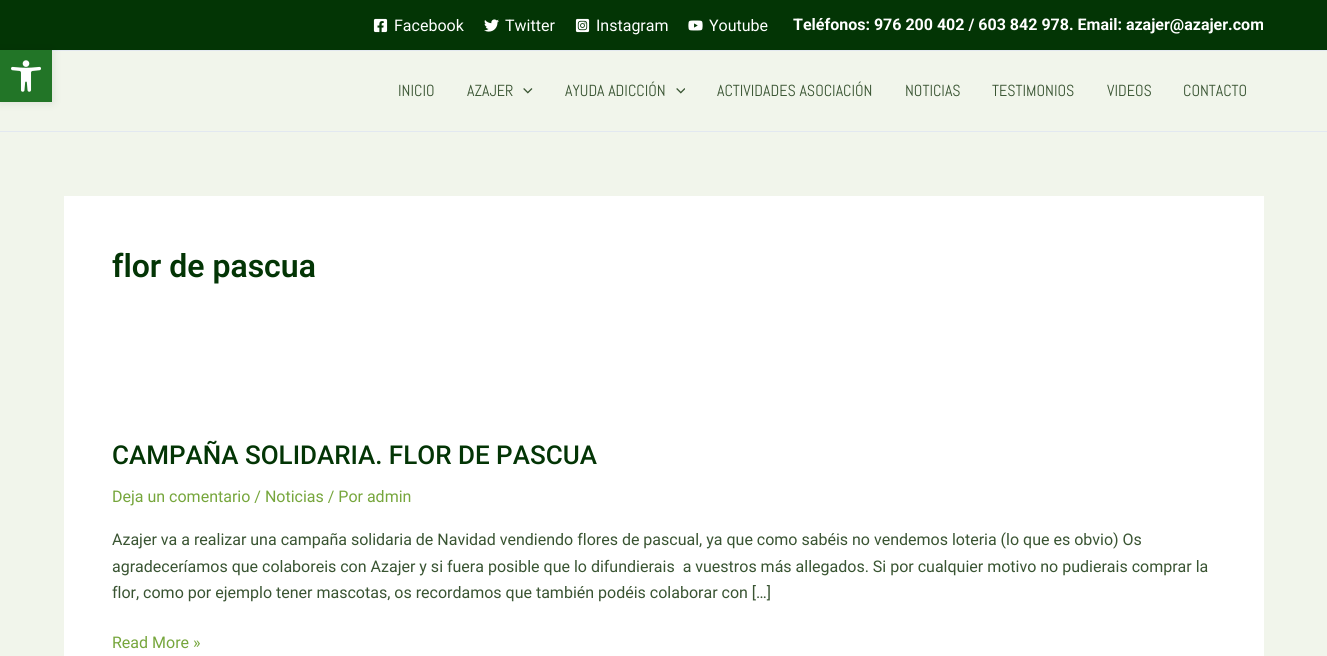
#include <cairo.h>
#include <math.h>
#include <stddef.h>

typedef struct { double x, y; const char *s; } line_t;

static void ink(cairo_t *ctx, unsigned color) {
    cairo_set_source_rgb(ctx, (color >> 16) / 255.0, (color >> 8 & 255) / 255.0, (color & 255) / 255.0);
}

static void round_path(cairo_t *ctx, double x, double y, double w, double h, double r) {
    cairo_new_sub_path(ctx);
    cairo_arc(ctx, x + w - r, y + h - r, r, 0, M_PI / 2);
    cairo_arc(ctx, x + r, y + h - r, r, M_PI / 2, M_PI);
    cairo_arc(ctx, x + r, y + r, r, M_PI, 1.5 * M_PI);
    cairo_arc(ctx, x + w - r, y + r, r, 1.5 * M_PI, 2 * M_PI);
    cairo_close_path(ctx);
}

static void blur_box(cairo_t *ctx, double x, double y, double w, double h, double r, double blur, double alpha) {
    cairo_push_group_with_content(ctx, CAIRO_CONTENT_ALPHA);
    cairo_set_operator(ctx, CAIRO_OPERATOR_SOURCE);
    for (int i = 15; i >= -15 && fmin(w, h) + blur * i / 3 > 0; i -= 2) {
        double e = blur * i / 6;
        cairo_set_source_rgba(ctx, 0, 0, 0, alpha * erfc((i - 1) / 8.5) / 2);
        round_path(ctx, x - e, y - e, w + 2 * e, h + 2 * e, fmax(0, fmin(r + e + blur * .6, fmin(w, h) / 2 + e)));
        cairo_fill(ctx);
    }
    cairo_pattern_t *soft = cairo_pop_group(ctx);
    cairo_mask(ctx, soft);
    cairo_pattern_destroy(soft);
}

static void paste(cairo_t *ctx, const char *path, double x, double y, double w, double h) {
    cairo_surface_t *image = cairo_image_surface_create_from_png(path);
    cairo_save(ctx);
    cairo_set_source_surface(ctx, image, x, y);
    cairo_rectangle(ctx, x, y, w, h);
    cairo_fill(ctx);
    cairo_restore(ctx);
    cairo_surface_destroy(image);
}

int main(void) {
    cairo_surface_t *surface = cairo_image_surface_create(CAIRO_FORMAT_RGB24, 1327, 656);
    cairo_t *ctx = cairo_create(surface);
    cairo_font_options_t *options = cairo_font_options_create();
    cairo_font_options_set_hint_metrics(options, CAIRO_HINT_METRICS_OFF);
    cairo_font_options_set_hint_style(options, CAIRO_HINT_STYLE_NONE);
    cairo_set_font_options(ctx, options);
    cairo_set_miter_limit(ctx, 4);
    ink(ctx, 0xF1F5EB);
    cairo_paint(ctx);
    ink(ctx, 0x033505);
    cairo_rectangle(ctx, 0, 0, 1327, 50);
    cairo_fill(ctx);
    ink(ctx, 0xE2E8F0);
    cairo_rectangle(ctx, 52, 50, 1275, 1);
    cairo_fill(ctx);
    ink(ctx, 0x000000);
    blur_box(ctx, 0, 50, 52, 52, 0, 5, 0.1);
    ink(ctx, 0x227527);
    cairo_rectangle(ctx, 0, 50, 52, 52);
    cairo_fill(ctx);
    paste(ctx, "media/1.png", 11, 60, 30, 32);
    paste(ctx, "media/2.png", 373, 18, 15, 15);
    cairo_select_font_face(ctx, "Roboto", CAIRO_FONT_SLANT_NORMAL, CAIRO_FONT_WEIGHT_NORMAL);
    cairo_set_font_size(ctx, 16);
    ink(ctx, 0xFFFFFF);
    cairo_move_to(ctx, 394, 31);
    cairo_show_text(ctx, "Facebook");
    paste(ctx, "media/3.png", 484, 19, 15, 13);
    cairo_move_to(ctx, 505, 31);
    cairo_show_text(ctx, "Twitter");
    paste(ctx, "media/4.png", 575, 18, 15, 15);
    cairo_move_to(ctx, 596, 31);
    cairo_show_text(ctx, "Instagram");
    paste(ctx, "media/5.png", 688, 20, 15, 11);
    cairo_move_to(ctx, 709, 31);
    cairo_show_text(ctx, "Youtube");
    cairo_select_font_face(ctx, "Roboto", CAIRO_FONT_SLANT_NORMAL, CAIRO_FONT_WEIGHT_BOLD);
    cairo_move_to(ctx, 793, 30);
    cairo_show_text(ctx, "Teléfonos: 976 200 402 / 603 842 978. Email: azajer@azajer.com");
    ink(ctx, 0xE2E8F0);
    cairo_rectangle(ctx, 0, 131, 1327, 1);
    cairo_fill(ctx);
    cairo_select_font_face(ctx, "Abel", CAIRO_FONT_SLANT_NORMAL, CAIRO_FONT_WEIGHT_NORMAL);
    ink(ctx, 0x395432);
    cairo_move_to(ctx, 398, 96);
    cairo_show_text(ctx, "INICIO");
    cairo_move_to(ctx, 467, 96);
    cairo_show_text(ctx, "AZAJER");
    paste(ctx, "media/6.png", 523, 88, 10, 6);
    cairo_move_to(ctx, 565, 96);
    cairo_show_text(ctx, "AYUDA ADICCIÓN");
    paste(ctx, "media/7.png", 676, 88, 9, 6);
    {
        static const line_t items[] = {
            {717, 96, "ACTIVIDADES ASOCIACIÓN"},
            {905, 96, "NOTICIAS"},
            {992, 96, "TESTIMONIOS"},
            {1107, 96, "VIDEOS"},
            {1183, 96, "CONTACTO"},
        };
        for (size_t i = 0; i < sizeof items / sizeof *items; i++) {
            cairo_move_to(ctx, items[i].x, items[i].y);
            cairo_show_text(ctx, items[i].s);
        }
    }
    ink(ctx, 0xFFFFFF);
    cairo_rectangle(ctx, 64, 196, 1200, 460);
    cairo_fill(ctx);
    cairo_select_font_face(ctx, "Roboto SemiBold", CAIRO_FONT_SLANT_NORMAL, CAIRO_FONT_WEIGHT_NORMAL);
    cairo_set_font_size(ctx, 32);
    ink(ctx, 0x033505);
    cairo_move_to(ctx, 112, 277);
    cairo_show_text(ctx, "flor de pascua");
    cairo_select_font_face(ctx, "Roboto Medium", CAIRO_FONT_SLANT_NORMAL, CAIRO_FONT_WEIGHT_NORMAL);
    cairo_set_font_size(ctx, 26);
    cairo_move_to(ctx, 112, 464);
    cairo_show_text(ctx, "CAMPAÑA SOLIDARIA. FLOR DE PASCUA");
    cairo_select_font_face(ctx, "Roboto", CAIRO_FONT_SLANT_NORMAL, CAIRO_FONT_WEIGHT_NORMAL);
    cairo_set_font_size(ctx, 16);
    ink(ctx, 0x76A63C);
    cairo_move_to(ctx, 112, 502);
    cairo_show_text(ctx, "Deja un comentario / Noticias / Por admin");
    ink(ctx, 0x395432);
    {
        static const line_t items[] = {
            {112, 545, "Azajer va a realizar una campaña solidaria de Navidad vendiendo flores de pascual, ya que como sabéis no vendemos loteria (lo que es obvio) Os"},
            {112, 572, "agradeceríamos que colaboreis con Azajer y si fuera posible que lo difundierais  a vuestros más allegados. Si por cualquier motivo no pudierais comprar la"},
            {112, 598, "flor, como por ejemplo tener mascotas, os recordamos que también podéis colaborar con […]"},
        };
        for (size_t i = 0; i < sizeof items / sizeof *items; i++) {
            cairo_move_to(ctx, items[i].x, items[i].y);
            cairo_show_text(ctx, items[i].s);
        }
    }
    ink(ctx, 0x76A63C);
    cairo_move_to(ctx, 112, 648);
    cairo_show_text(ctx, "Read More »");
    cairo_surface_write_to_png(surface, "image.png");
    cairo_font_options_destroy(options);
    cairo_destroy(ctx);
    cairo_surface_destroy(surface);
    return 0;
}
